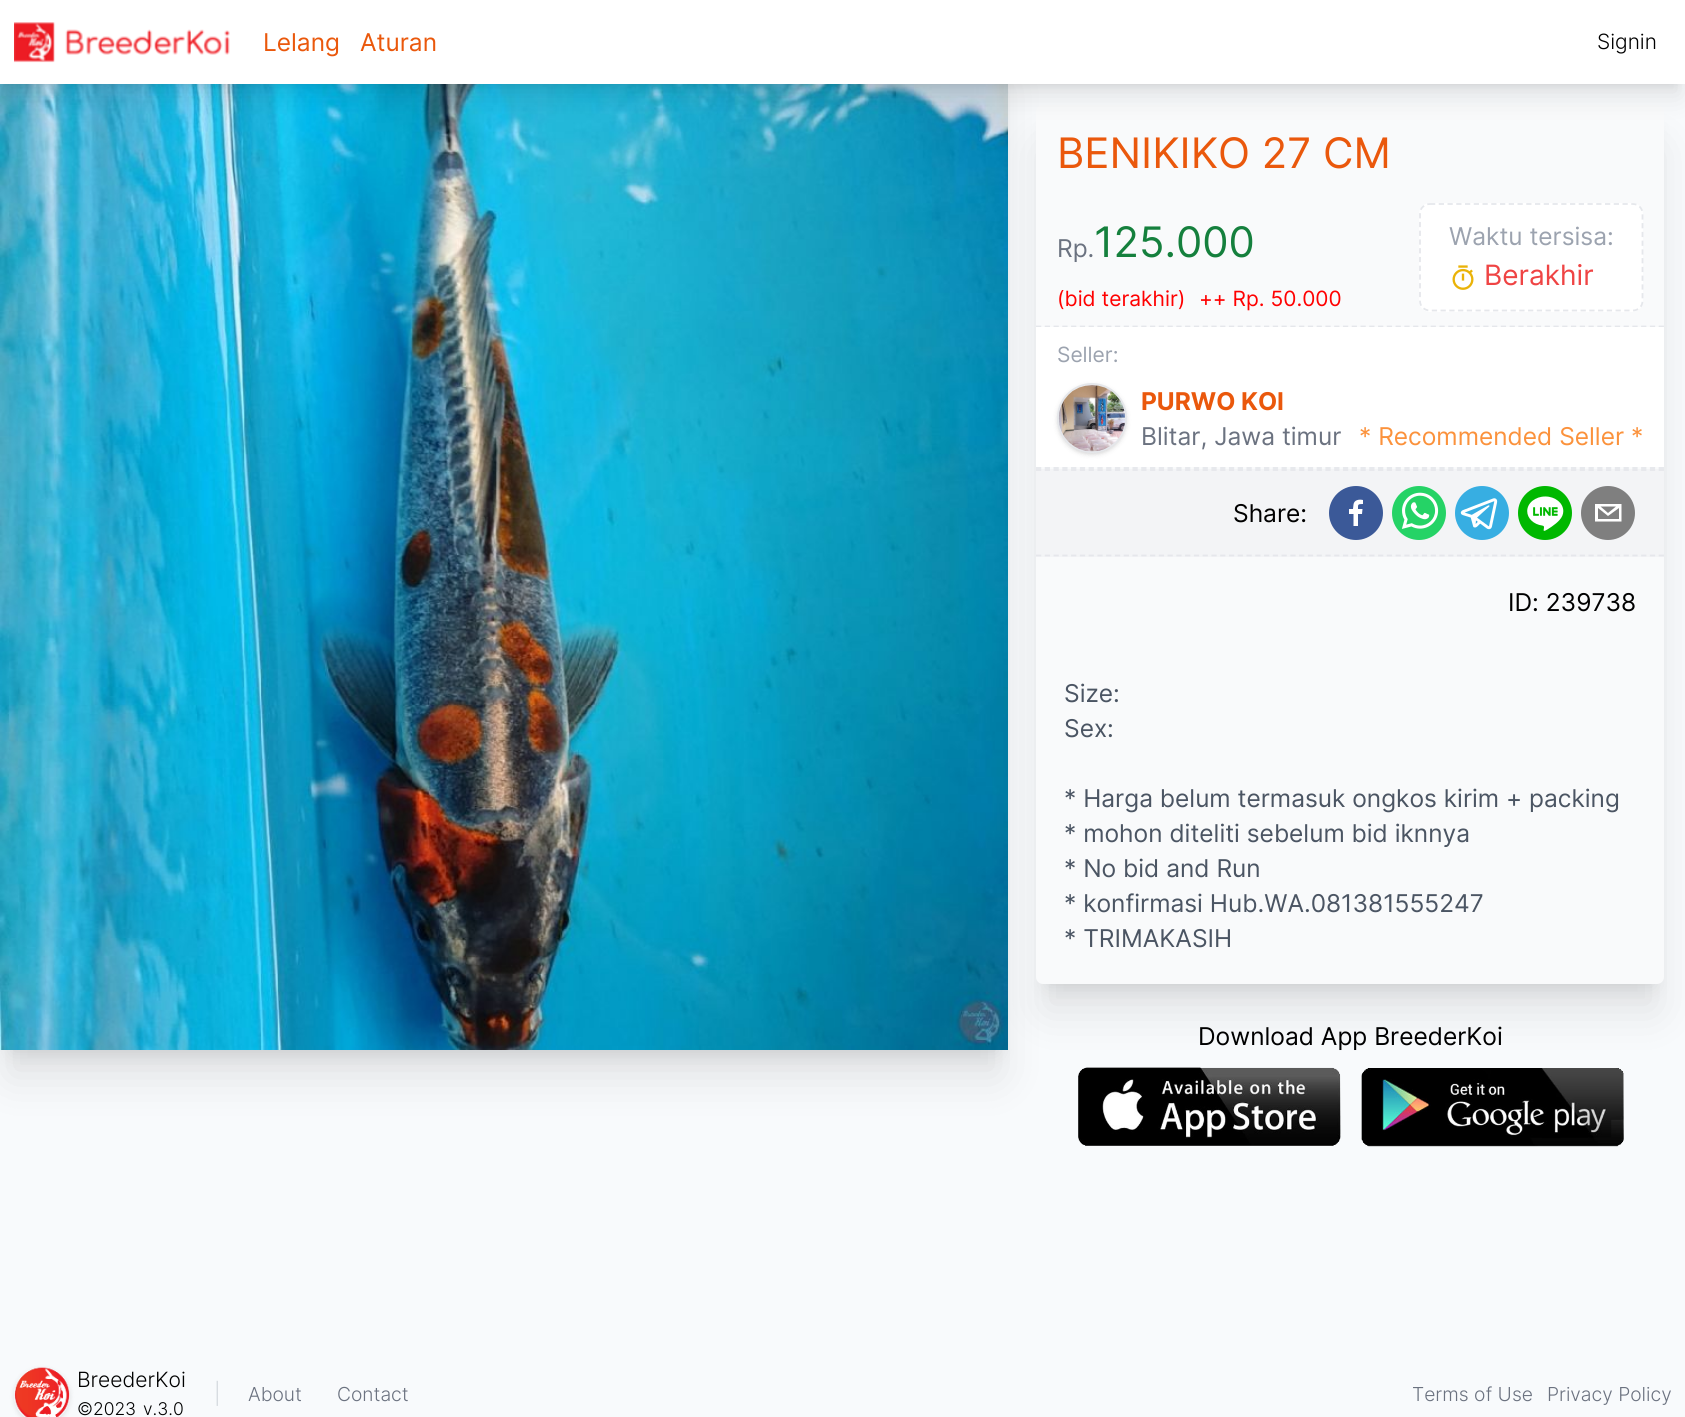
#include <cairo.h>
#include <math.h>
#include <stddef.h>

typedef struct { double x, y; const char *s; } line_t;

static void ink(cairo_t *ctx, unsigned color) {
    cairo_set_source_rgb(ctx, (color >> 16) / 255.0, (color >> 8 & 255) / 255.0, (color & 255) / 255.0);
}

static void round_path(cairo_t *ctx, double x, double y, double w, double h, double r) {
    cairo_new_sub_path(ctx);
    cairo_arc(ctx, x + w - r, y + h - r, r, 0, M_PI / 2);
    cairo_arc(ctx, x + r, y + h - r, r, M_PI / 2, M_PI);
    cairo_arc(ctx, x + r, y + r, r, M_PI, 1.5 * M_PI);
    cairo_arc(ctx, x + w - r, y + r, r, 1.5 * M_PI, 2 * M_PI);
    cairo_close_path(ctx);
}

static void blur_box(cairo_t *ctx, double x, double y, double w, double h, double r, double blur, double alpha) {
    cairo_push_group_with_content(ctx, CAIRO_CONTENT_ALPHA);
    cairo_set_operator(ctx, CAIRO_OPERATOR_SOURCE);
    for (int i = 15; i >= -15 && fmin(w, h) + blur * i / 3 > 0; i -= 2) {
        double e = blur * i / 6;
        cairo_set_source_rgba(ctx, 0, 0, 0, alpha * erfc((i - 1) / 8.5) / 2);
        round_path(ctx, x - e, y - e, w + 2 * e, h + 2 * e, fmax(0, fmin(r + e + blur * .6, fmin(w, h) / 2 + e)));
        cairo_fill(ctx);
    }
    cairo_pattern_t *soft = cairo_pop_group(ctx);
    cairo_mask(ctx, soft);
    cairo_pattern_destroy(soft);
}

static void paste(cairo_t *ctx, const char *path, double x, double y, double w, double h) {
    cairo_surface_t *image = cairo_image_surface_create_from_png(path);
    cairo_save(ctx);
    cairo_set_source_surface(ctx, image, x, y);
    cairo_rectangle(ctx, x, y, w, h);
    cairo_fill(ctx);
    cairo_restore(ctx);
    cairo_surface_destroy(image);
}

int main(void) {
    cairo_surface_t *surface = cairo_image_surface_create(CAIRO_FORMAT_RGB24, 1685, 1417);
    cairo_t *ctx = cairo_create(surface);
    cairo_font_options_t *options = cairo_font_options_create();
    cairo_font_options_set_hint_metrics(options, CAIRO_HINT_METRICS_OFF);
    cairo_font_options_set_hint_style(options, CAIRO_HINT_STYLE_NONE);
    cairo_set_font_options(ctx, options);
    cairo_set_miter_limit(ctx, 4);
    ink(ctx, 0xF8FAFC);
    cairo_paint(ctx);
    ink(ctx, 0x000000);
    blur_box(ctx, 11, 67, 987, 987, 0, 9, 0.1);
    blur_box(ctx, 9, 86, 990, 990, 0, 22, 0.1);
    paste(ctx, "media/2.png", 0, 84, 1008, 966);
    blur_box(ctx, 7, 14, 1671, 70, 0, 5, 0.1);
    blur_box(ctx, 1047, 130, 607, 857, 0, 9, 0.1);
    blur_box(ctx, 1045, 149, 611, 861, 0, 22, 0.1);
    ink(ctx, 0xF9FAFB);
    round_path(ctx, 1036, 105, 628, 879, 7);
    cairo_fill(ctx);
    ink(ctx, 0x000000);
    blur_box(ctx, 5, 23, 1675, 73, 0, 13, 0.1);
    ink(ctx, 0xFFFFFF);
    cairo_rectangle(ctx, 0, 0, 1685, 84);
    cairo_fill(ctx);
    paste(ctx, "media/1.png", 14, 22, 216, 41);
    cairo_select_font_face(ctx, "Inter", CAIRO_FONT_SLANT_NORMAL, CAIRO_FONT_WEIGHT_NORMAL);
    cairo_set_font_size(ctx, 24.5);
    ink(ctx, 0xEA580C);
    cairo_move_to(ctx, 263, 51);
    cairo_show_text(ctx, "Lelang");
    cairo_move_to(ctx, 360, 51);
    cairo_show_text(ctx, "Aturan");
    cairo_select_font_face(ctx, "Inter Light", CAIRO_FONT_SLANT_NORMAL, CAIRO_FONT_WEIGHT_NORMAL);
    cairo_set_font_size(ctx, 21);
    ink(ctx, 0x000000);
    cairo_move_to(ctx, 1597, 49);
    cairo_show_text(ctx, "Signin");
    cairo_select_font_face(ctx, "Inter", CAIRO_FONT_SLANT_NORMAL, CAIRO_FONT_WEIGHT_NORMAL);
    cairo_set_font_size(ctx, 42);
    ink(ctx, 0xEA580C);
    cairo_move_to(ctx, 1057, 168);
    cairo_show_text(ctx, "BENIKIKO 27 CM");
    cairo_set_font_size(ctx, 24.5);
    ink(ctx, 0x6B7280);
    cairo_move_to(ctx, 1057, 257);
    cairo_show_text(ctx, "Rp.");
    cairo_set_font_size(ctx, 42);
    ink(ctx, 0x15803D);
    cairo_move_to(ctx, 1094, 257);
    cairo_show_text(ctx, "125.000");
    cairo_set_font_size(ctx, 21);
    ink(ctx, 0xFF0000);
    cairo_move_to(ctx, 1057, 306);
    cairo_show_text(ctx, "(bid terakhir)");
    cairo_move_to(ctx, 1199, 306);
    cairo_show_text(ctx, "++ Rp. 50.000");
    ink(ctx, 0xFFFFFF);
    round_path(ctx, 1419, 203, 224, 109, 11);
    cairo_fill(ctx);
    cairo_new_path(ctx);
    cairo_move_to(ctx, 1430, 204);
    cairo_line_to(ctx, 1633, 204);
    cairo_curve_to(ctx, 1638, 204, 1642.5, 208, 1642.5, 213.5);
    cairo_line_to(ctx, 1642.5, 301);
    cairo_curve_to(ctx, 1642.5, 306.5, 1638, 310.5, 1633, 310.5);
    cairo_line_to(ctx, 1430, 310.5);
    cairo_curve_to(ctx, 1424.5, 310.5, 1420, 306.5, 1420, 301);
    cairo_line_to(ctx, 1420, 213.5);
    cairo_curve_to(ctx, 1420, 208, 1424.5, 204, 1430, 204);
    cairo_close_path(ctx);
    ink(ctx, 0xE5E7EB);
    cairo_set_line_width(ctx, 1.8);
    cairo_set_dash(ctx, (double[]){5.25, 3.5}, 2, 0);
    cairo_stroke(ctx);
    cairo_set_font_size(ctx, 24.5);
    ink(ctx, 0x9CA3AF);
    cairo_move_to(ctx, 1449, 245);
    cairo_show_text(ctx, "Waktu tersisa:");
    paste(ctx, "media/3.png", 1452, 265, 22, 25);
    cairo_set_font_size(ctx, 28);
    ink(ctx, 0xEF4444);
    cairo_move_to(ctx, 1484, 285);
    cairo_show_text(ctx, "Berakhir");
    cairo_new_path(ctx);
    cairo_move_to(ctx, 1036, 326.5);
    cairo_line_to(ctx, 1664, 326.5);
    ink(ctx, 0xE5E7EB);
    cairo_set_dash(ctx, (double[]){5.25, 3.52}, 2, 0);
    cairo_stroke(ctx);
    cairo_new_path(ctx);
    cairo_move_to(ctx, 1036, 468);
    cairo_line_to(ctx, 1664, 468);
    cairo_stroke(ctx);
    ink(ctx, 0xFFFFFF);
    cairo_rectangle(ctx, 1036, 327, 628, 140);
    cairo_fill(ctx);
    cairo_set_font_size(ctx, 21);
    ink(ctx, 0x9CA3AF);
    cairo_move_to(ctx, 1057, 362);
    cairo_show_text(ctx, "Seller:");
    ink(ctx, 0x000000);
    blur_box(ctx, 1059, 387, 66, 66, 33, 2, 0.1);
    blur_box(ctx, 1057, 385, 70, 70, 35, 2.5, 0.1);
    cairo_arc(ctx, 1092, 418, 34, 0, 2 * M_PI);
    ink(ctx, 0xE5E7EB);
    cairo_set_line_width(ctx, 2);
    cairo_set_dash(ctx, NULL, 0, 0);
    cairo_stroke(ctx);
    paste(ctx, "media/4.png", 1058, 385, 67, 67);
    cairo_select_font_face(ctx, "Inter", CAIRO_FONT_SLANT_NORMAL, CAIRO_FONT_WEIGHT_BOLD);
    cairo_set_font_size(ctx, 24.5);
    ink(ctx, 0xEA580C);
    cairo_move_to(ctx, 1141, 410);
    cairo_show_text(ctx, "PURWO KOI");
    cairo_select_font_face(ctx, "Inter", CAIRO_FONT_SLANT_NORMAL, CAIRO_FONT_WEIGHT_NORMAL);
    ink(ctx, 0x6B7280);
    cairo_move_to(ctx, 1141, 445);
    cairo_show_text(ctx, "Blitar, Jawa timur");
    ink(ctx, 0xFB923C);
    cairo_move_to(ctx, 1359, 445);
    cairo_show_text(ctx, "* Recommended Seller *");
    ink(ctx, 0xF3F4F6);
    cairo_rectangle(ctx, 1036, 469, 628, 88);
    cairo_fill(ctx);
    cairo_new_path(ctx);
    cairo_move_to(ctx, 1036, 470);
    cairo_line_to(ctx, 1664, 470);
    ink(ctx, 0xE5E7EB);
    cairo_set_line_width(ctx, 1.8);
    cairo_set_dash(ctx, (double[]){5.25, 3.52}, 2, 0);
    cairo_stroke(ctx);
    cairo_new_path(ctx);
    cairo_move_to(ctx, 1036, 555.5);
    cairo_line_to(ctx, 1664, 555.5);
    cairo_stroke(ctx);
    ink(ctx, 0x000000);
    cairo_move_to(ctx, 1233, 522);
    cairo_show_text(ctx, "Share:");
    ink(ctx, 0x3B5998);
    cairo_new_path(ctx);
    cairo_arc(ctx, 1356, 513, 27, 0, 2 * M_PI);
    cairo_fill(ctx);
    ink(ctx, 0xFFFFFF);
    cairo_new_path(ctx);
    cairo_move_to(ctx, 1358, 526);
    cairo_line_to(ctx, 1358, 514);
    cairo_line_to(ctx, 1362, 514);
    cairo_line_to(ctx, 1362.5, 509);
    cairo_line_to(ctx, 1358, 509);
    cairo_curve_to(ctx, 1358, 504.5, 1357.5, 504, 1363, 504);
    cairo_line_to(ctx, 1363, 500);
    cairo_curve_to(ctx, 1359, 499, 1354, 500, 1353.5, 504.5);
    cairo_line_to(ctx, 1353, 509);
    cairo_line_to(ctx, 1349, 509);
    cairo_line_to(ctx, 1349, 514);
    cairo_line_to(ctx, 1353.5, 514);
    cairo_line_to(ctx, 1353.5, 526);
    cairo_close_path(ctx);
    cairo_fill(ctx);
    paste(ctx, "media/5.png", 1392, 486, 54, 54);
    paste(ctx, "media/6.png", 1455, 486, 54, 54);
    paste(ctx, "media/7.png", 1518, 486, 54, 54);
    ink(ctx, 0x7F7F7F);
    cairo_arc(ctx, 1608, 513, 27, 0, 2 * M_PI);
    cairo_fill(ctx);
    ink(ctx, 0xFFFFFF);
    cairo_new_path(ctx);
    cairo_move_to(ctx, 1595, 504);
    cairo_line_to(ctx, 1595, 521.5);
    cairo_line_to(ctx, 1621.5, 521.5);
    cairo_line_to(ctx, 1621.5, 504);
    cairo_close_path(ctx);
    cairo_move_to(ctx, 1616, 506.5);
    cairo_line_to(ctx, 1608, 513);
    cairo_line_to(ctx, 1600.5, 506.5);
    cairo_close_path(ctx);
    cairo_move_to(ctx, 1598, 519);
    cairo_line_to(ctx, 1598, 508);
    cairo_line_to(ctx, 1608, 516);
    cairo_line_to(ctx, 1619, 508);
    cairo_line_to(ctx, 1619, 519);
    cairo_close_path(ctx);
    cairo_fill(ctx);
    ink(ctx, 0x000000);
    cairo_move_to(ctx, 1508, 611);
    cairo_show_text(ctx, "ID: 239738");
    ink(ctx, 0x4B5563);
    {
        static const line_t items[] = {
            {1064, 702, "Size:"},
            {1064, 737, "Sex:"},
            {1064, 807, "* Harga belum termasuk ongkos kirim + packing"},
            {1064, 842, "* mohon diteliti sebelum bid iknnya"},
            {1064, 877, "* No bid and Run"},
            {1064, 912, "* konfirmasi Hub.WA.081381555247"},
            {1064, 947, "* TRIMAKASIH"},
        };
        for (size_t i = 0; i < sizeof items / sizeof *items; i++) {
            cairo_move_to(ctx, items[i].x, items[i].y);
            cairo_show_text(ctx, items[i].s);
        }
    }
    ink(ctx, 0x000000);
    cairo_move_to(ctx, 1198, 1045);
    cairo_show_text(ctx, "Download App BreederKoi");
    paste(ctx, "media/8.png", 1078, 1067, 263, 79);
    paste(ctx, "media/9.png", 1361, 1068, 263, 79);
    cairo_save(ctx);
    cairo_set_fill_rule(ctx, CAIRO_FILL_RULE_EVEN_ODD);
    cairo_new_path(ctx);
    cairo_move_to(ctx, 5, 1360);
    cairo_line_to(ctx, 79, 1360);
    cairo_line_to(ctx, 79, 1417);
    cairo_line_to(ctx, 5, 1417);
    cairo_close_path(ctx);
    cairo_move_to(ctx, 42, 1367);
    cairo_curve_to(ctx, 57.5, 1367, 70, 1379.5, 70, 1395);
    cairo_curve_to(ctx, 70, 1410.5, 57.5, 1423, 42, 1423);
    cairo_curve_to(ctx, 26.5, 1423, 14, 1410.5, 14, 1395);
    cairo_curve_to(ctx, 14, 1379.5, 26.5, 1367, 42, 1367);
    cairo_close_path(ctx);
    cairo_clip(ctx);
    ink(ctx, 0x000000);
    blur_box(ctx, 14, 1369, 56, 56, 28, 2.5, 0.1);
    cairo_restore(ctx);
    paste(ctx, "media/10.png", 14, 1367, 56, 50);
    cairo_select_font_face(ctx, "Inter Light", CAIRO_FONT_SLANT_NORMAL, CAIRO_FONT_WEIGHT_NORMAL);
    cairo_set_font_size(ctx, 21);
    cairo_move_to(ctx, 77, 1387);
    cairo_show_text(ctx, "BreederKoi");
    cairo_set_font_size(ctx, 17.5);
    cairo_move_to(ctx, 77, 1415);
    cairo_show_text(ctx, "©2023");
    cairo_move_to(ctx, 143, 1415);
    cairo_show_text(ctx, "v.3.0");
    cairo_set_font_size(ctx, 21);
    ink(ctx, 0xD1D5DB);
    cairo_move_to(ctx, 214, 1401);
    cairo_show_text(ctx, "|");
    cairo_set_font_size(ctx, 19.25);
    ink(ctx, 0x6B7280);
    {
        static const line_t items[] = {
            {248, 1401, "About"},
            {337, 1401, "Contact"},
            {1412, 1401, "Terms of Use"},
            {1547, 1401, "Privacy Policy"},
        };
        for (size_t i = 0; i < sizeof items / sizeof *items; i++) {
            cairo_move_to(ctx, items[i].x, items[i].y);
            cairo_show_text(ctx, items[i].s);
        }
    }
    cairo_surface_write_to_png(surface, "image.png");
    cairo_font_options_destroy(options);
    cairo_destroy(ctx);
    cairo_surface_destroy(surface);
    return 0;
}
